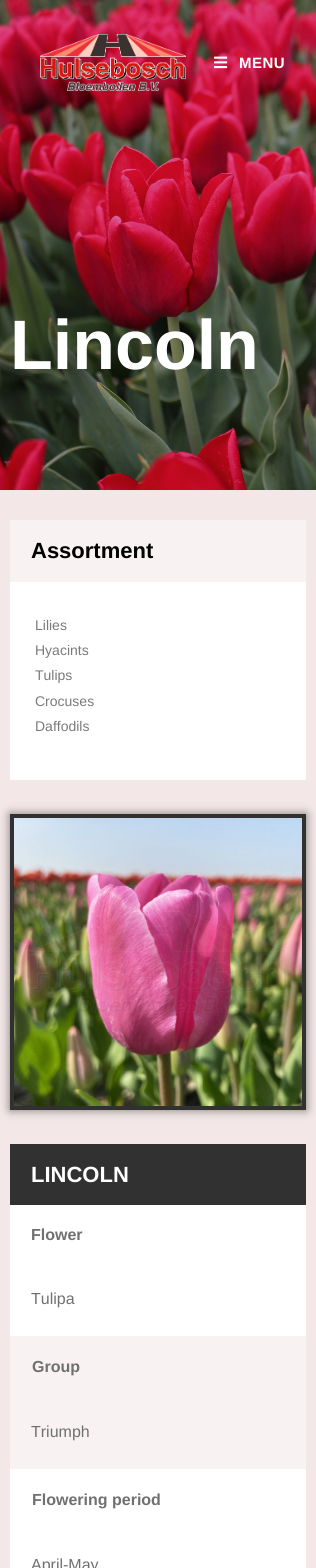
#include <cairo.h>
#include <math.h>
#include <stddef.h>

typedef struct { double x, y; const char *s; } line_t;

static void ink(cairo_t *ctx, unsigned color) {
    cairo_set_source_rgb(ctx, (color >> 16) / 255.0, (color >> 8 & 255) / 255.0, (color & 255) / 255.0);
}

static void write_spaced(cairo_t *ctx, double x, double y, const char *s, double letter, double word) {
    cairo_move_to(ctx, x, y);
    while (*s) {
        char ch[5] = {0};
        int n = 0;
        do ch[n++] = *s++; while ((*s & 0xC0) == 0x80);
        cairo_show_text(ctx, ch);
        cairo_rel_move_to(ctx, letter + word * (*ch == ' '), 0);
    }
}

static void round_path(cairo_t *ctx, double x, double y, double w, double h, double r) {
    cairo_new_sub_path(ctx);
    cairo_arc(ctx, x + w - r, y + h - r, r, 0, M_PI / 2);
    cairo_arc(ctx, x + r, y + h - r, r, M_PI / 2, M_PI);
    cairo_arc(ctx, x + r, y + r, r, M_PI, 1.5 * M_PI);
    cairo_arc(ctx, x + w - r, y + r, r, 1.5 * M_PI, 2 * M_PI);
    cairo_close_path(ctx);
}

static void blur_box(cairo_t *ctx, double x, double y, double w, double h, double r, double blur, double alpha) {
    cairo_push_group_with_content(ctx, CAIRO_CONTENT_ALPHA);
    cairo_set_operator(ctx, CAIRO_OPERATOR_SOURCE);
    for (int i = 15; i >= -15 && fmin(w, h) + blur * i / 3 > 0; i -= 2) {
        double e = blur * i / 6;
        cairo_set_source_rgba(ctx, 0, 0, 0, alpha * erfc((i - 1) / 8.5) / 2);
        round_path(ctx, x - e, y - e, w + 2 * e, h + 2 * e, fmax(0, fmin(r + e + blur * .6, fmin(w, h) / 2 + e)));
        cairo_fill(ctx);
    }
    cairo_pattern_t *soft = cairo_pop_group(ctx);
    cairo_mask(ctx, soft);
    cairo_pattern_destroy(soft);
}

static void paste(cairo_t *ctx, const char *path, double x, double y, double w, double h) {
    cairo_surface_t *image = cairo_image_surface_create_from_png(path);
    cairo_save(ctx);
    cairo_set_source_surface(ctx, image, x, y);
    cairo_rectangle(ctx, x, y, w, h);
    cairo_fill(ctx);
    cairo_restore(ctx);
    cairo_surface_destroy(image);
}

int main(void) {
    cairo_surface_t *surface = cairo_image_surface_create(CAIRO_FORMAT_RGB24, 316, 1568);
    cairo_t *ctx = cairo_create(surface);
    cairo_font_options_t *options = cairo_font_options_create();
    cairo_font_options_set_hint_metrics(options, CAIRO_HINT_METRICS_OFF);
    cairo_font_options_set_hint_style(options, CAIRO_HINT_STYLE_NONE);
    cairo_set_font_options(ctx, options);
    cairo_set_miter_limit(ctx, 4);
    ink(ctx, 0xF3E8E7);
    cairo_paint(ctx);
    paste(ctx, "media/3.png", 0, 0, 316, 490);
    paste(ctx, "media/1.png", 40, 34, 146, 57);
    paste(ctx, "media/2.png", 214, 56, 14, 13);
    cairo_select_font_face(ctx, "Liberation Sans", CAIRO_FONT_SLANT_NORMAL, CAIRO_FONT_WEIGHT_BOLD);
    cairo_set_font_size(ctx, 15);
    ink(ctx, 0xFFFFFF);
    write_spaced(ctx, 239, 68, "MENU", 0.5, 0);
    cairo_set_font_size(ctx, 70);
    cairo_move_to(ctx, 10, 369);
    cairo_show_text(ctx, "Lincoln");
    ink(ctx, 0xF8F2F2);
    cairo_rectangle(ctx, 10, 520, 296, 62);
    cairo_fill(ctx);
    cairo_set_font_size(ctx, 22);
    ink(ctx, 0x000000);
    cairo_move_to(ctx, 31, 558);
    cairo_show_text(ctx, "Assortment");
    ink(ctx, 0xFFFFFF);
    cairo_rectangle(ctx, 10, 582, 296, 198);
    cairo_fill(ctx);
    cairo_select_font_face(ctx, "Liberation Sans", CAIRO_FONT_SLANT_NORMAL, CAIRO_FONT_WEIGHT_NORMAL);
    cairo_set_font_size(ctx, 14);
    ink(ctx, 0x7A7A7A);
    {
        static const line_t items[] = {
            {35, 630, "Lilies"},
            {35, 655, "Hyacints"},
            {35, 680, "Tulips"},
            {35, 706, "Crocuses"},
            {35, 731, "Daffodils"},
        };
        for (size_t i = 0; i < sizeof items / sizeof *items; i++) {
            cairo_move_to(ctx, items[i].x, items[i].y);
            cairo_show_text(ctx, items[i].s);
        }
    }
    ink(ctx, 0x000000);
    blur_box(ctx, 10, 814, 296, 296, 0, 5, 0.5);
    cairo_rectangle(ctx, 12, 816, 292, 292);
    ink(ctx, 0x313131);
    cairo_set_line_width(ctx, 4);
    cairo_stroke(ctx);
    paste(ctx, "media/4.png", 14, 818, 288, 288);
    cairo_rectangle(ctx, 10, 1144, 296, 61);
    cairo_fill(ctx);
    cairo_select_font_face(ctx, "Liberation Sans", CAIRO_FONT_SLANT_NORMAL, CAIRO_FONT_WEIGHT_BOLD);
    cairo_set_font_size(ctx, 22);
    ink(ctx, 0xFFFFFF);
    cairo_move_to(ctx, 31, 1182);
    cairo_show_text(ctx, "LINCOLN");
    cairo_rectangle(ctx, 10, 1205, 296, 131);
    cairo_fill(ctx);
    cairo_set_font_size(ctx, 16);
    ink(ctx, 0x707070);
    cairo_move_to(ctx, 31, 1240);
    cairo_show_text(ctx, "Flower");
    cairo_select_font_face(ctx, "Liberation Sans", CAIRO_FONT_SLANT_NORMAL, CAIRO_FONT_WEIGHT_NORMAL);
    cairo_move_to(ctx, 31, 1304);
    cairo_show_text(ctx, "Tulipa");
    ink(ctx, 0xF8F2F2);
    cairo_rectangle(ctx, 10, 1336, 296, 133);
    cairo_fill(ctx);
    cairo_select_font_face(ctx, "Liberation Sans", CAIRO_FONT_SLANT_NORMAL, CAIRO_FONT_WEIGHT_BOLD);
    ink(ctx, 0x707070);
    cairo_move_to(ctx, 32, 1372);
    cairo_show_text(ctx, "Group");
    cairo_select_font_face(ctx, "Liberation Sans", CAIRO_FONT_SLANT_NORMAL, CAIRO_FONT_WEIGHT_NORMAL);
    cairo_move_to(ctx, 31, 1437);
    cairo_show_text(ctx, "Triumph");
    ink(ctx, 0xFFFFFF);
    cairo_rectangle(ctx, 10, 1469, 296, 99);
    cairo_fill(ctx);
    cairo_select_font_face(ctx, "Liberation Sans", CAIRO_FONT_SLANT_NORMAL, CAIRO_FONT_WEIGHT_BOLD);
    ink(ctx, 0x707070);
    cairo_move_to(ctx, 32, 1505);
    cairo_show_text(ctx, "Flowering period");
    cairo_select_font_face(ctx, "Liberation Sans", CAIRO_FONT_SLANT_NORMAL, CAIRO_FONT_WEIGHT_NORMAL);
    cairo_move_to(ctx, 31, 1570);
    cairo_show_text(ctx, "April-May");
    cairo_surface_write_to_png(surface, "image.png");
    cairo_font_options_destroy(options);
    cairo_destroy(ctx);
    cairo_surface_destroy(surface);
    return 0;
}
